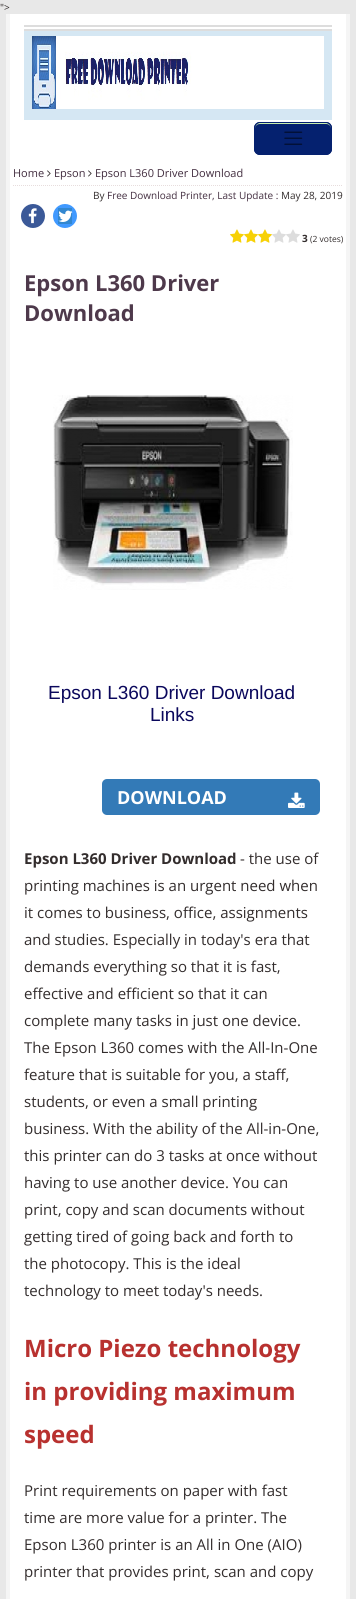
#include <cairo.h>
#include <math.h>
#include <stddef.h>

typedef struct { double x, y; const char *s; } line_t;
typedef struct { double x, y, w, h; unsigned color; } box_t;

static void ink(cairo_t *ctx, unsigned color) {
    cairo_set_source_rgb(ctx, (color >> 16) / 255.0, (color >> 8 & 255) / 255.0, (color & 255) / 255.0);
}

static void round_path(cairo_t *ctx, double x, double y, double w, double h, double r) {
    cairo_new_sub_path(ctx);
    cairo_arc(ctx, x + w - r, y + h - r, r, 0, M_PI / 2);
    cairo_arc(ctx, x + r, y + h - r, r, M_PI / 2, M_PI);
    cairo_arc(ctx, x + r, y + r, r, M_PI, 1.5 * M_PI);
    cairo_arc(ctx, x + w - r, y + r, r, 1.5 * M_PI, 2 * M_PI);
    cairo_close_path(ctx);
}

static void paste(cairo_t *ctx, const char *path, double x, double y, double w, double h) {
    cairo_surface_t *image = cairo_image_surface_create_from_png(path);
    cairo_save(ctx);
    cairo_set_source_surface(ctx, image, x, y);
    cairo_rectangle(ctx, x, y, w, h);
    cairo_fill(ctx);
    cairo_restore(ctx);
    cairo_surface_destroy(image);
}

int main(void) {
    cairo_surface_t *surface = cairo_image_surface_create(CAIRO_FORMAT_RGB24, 356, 1599);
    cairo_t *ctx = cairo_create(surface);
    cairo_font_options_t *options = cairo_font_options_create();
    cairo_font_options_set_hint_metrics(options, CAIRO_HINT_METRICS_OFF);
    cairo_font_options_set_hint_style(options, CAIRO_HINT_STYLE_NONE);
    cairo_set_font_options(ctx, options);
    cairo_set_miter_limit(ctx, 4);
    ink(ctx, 0xE8E8E8);
    cairo_paint(ctx);
    cairo_select_font_face(ctx, "Open Sans", CAIRO_FONT_SLANT_NORMAL, CAIRO_FONT_WEIGHT_NORMAL);
    cairo_set_font_size(ctx, 10);
    ink(ctx, 0x332D2D);
    cairo_move_to(ctx, 0, 11);
    cairo_show_text(ctx, "\">");
    {
        static const box_t items[] = {
            {10, 14, 336, 1585, 0xFFFFFF},
            {346, 14, 4, 1585, 0xF5F5F5},
            {6, 14, 4, 1585, 0xF5F5F5},
            {24, 25, 308, 2, 0xDDDDDD},
            {24, 29, 308, 2, 0xDDDDDD},
            {24, 31, 308, 89, 0xD5E7F3},
        };
        for (size_t i = 0; i < sizeof items / sizeof *items; i++) {
            ink(ctx, items[i].color);
            cairo_rectangle(ctx, items[i].x, items[i].y, items[i].w, items[i].h);
            cairo_fill(ctx);
        }
    }
    paste(ctx, "media/1.png", 32, 36, 292, 73);
    ink(ctx, 0x05216F);
    round_path(ctx, 254, 122, 78, 33, 6);
    cairo_fill(ctx);
    ink(ctx, 0xCAEFAB);
    cairo_new_path(ctx);
    cairo_move_to(ctx, 260, 124);
    cairo_line_to(ctx, 326, 124);
    cairo_curve_to(ctx, 329, 124, 331, 126, 331, 129);
    cairo_curve_to(ctx, 331, 120, 321, 123, 315, 123);
    cairo_line_to(ctx, 271, 123);
    cairo_curve_to(ctx, 265, 123, 255, 120, 255, 129);
    cairo_curve_to(ctx, 255, 126, 257, 124, 260, 124);
    cairo_close_path(ctx);
    cairo_fill(ctx);
    round_path(ctx, 254.5, 122.5, 77, 32, 5.5);
    ink(ctx, 0x05216F);
    cairo_set_line_width(ctx, 1);
    cairo_stroke(ctx);
    paste(ctx, "media/2.png", 284, 131, 19, 14);
    cairo_set_font_size(ctx, 11);
    ink(ctx, 0x422D3F);
    cairo_move_to(ctx, 13, 177);
    cairo_show_text(ctx, "Home");
    paste(ctx, "media/3.png", 47, 170, 4, 7);
    cairo_move_to(ctx, 54, 177);
    cairo_show_text(ctx, "Epson");
    paste(ctx, "media/3.png", 88, 170, 4, 7);
    cairo_move_to(ctx, 95, 177);
    cairo_show_text(ctx, "Epson L360 Driver Download");
    cairo_new_path(ctx);
    cairo_move_to(ctx, 13, 185.5);
    cairo_line_to(ctx, 343, 185.5);
    ink(ctx, 0xE7DDDD);
    cairo_set_dash(ctx, (double[]){1, 1}, 2, 0);
    cairo_stroke(ctx);
    cairo_set_font_size(ctx, 10);
    ink(ctx, 0x332D2D);
    cairo_move_to(ctx, 93, 199);
    cairo_show_text(ctx, "By");
    ink(ctx, 0x422D3F);
    cairo_move_to(ctx, 107, 199);
    cairo_show_text(ctx, "Free Download Printer, Last Update :");
    ink(ctx, 0x332D2D);
    cairo_move_to(ctx, 281, 199);
    cairo_show_text(ctx, "May 28, 2019");
    ink(ctx, 0x3B5998);
    cairo_new_path(ctx);
    cairo_arc(ctx, 33, 216, 12, 0, 2 * M_PI);
    cairo_fill(ctx);
    paste(ctx, "media/4.png", 28, 208, 9, 16);
    ink(ctx, 0x4099FF);
    cairo_arc(ctx, 65, 216, 12, 0, 2 * M_PI);
    cairo_fill(ctx);
    ink(ctx, 0x3287D0);
    cairo_rectangle(ctx, 58, 208, 14, 16);
    cairo_fill(ctx);
    paste(ctx, "media/5.png", 58, 210, 15, 12);
    paste(ctx, "media/6.png", 230, 229, 14, 14);
    paste(ctx, "media/6.png", 244, 229, 14, 14);
    paste(ctx, "media/6.png", 258, 229, 14, 14);
    paste(ctx, "media/7.png", 272, 229, 14, 14);
    paste(ctx, "media/7.png", 286, 229, 14, 14);
    cairo_select_font_face(ctx, "Open Sans", CAIRO_FONT_SLANT_NORMAL, CAIRO_FONT_WEIGHT_BOLD);
    ink(ctx, 0x332D2D);
    cairo_move_to(ctx, 302, 242);
    cairo_show_text(ctx, "3");
    cairo_select_font_face(ctx, "Open Sans", CAIRO_FONT_SLANT_NORMAL, CAIRO_FONT_WEIGHT_NORMAL);
    cairo_set_font_size(ctx, 8.5);
    cairo_move_to(ctx, 310, 242);
    cairo_show_text(ctx, "(2 votes)");
    cairo_select_font_face(ctx, "Open Sans", CAIRO_FONT_SLANT_NORMAL, CAIRO_FONT_WEIGHT_BOLD);
    cairo_set_font_size(ctx, 22);
    ink(ctx, 0x4E394B);
    cairo_move_to(ctx, 24, 291);
    cairo_show_text(ctx, "Epson L360 Driver");
    cairo_move_to(ctx, 24, 321);
    cairo_show_text(ctx, "Download");
    paste(ctx, "media/8.png", 53, 395, 240, 195);
    cairo_select_font_face(ctx, "Liberation Sans", CAIRO_FONT_SLANT_NORMAL, CAIRO_FONT_WEIGHT_NORMAL);
    cairo_set_font_size(ctx, 19);
    ink(ctx, 0x0A075C);
    cairo_move_to(ctx, 48, 699);
    cairo_show_text(ctx, "Epson L360 Driver Download");
    cairo_move_to(ctx, 150, 721);
    cairo_show_text(ctx, "Links");
    ink(ctx, 0x337AB7);
    round_path(ctx, 102, 779, 218, 36, 5);
    cairo_fill(ctx);
    cairo_select_font_face(ctx, "Open Sans", CAIRO_FONT_SLANT_NORMAL, CAIRO_FONT_WEIGHT_BOLD);
    cairo_set_font_size(ctx, 18);
    ink(ctx, 0xFFFFFF);
    cairo_move_to(ctx, 117, 804);
    cairo_show_text(ctx, "DOWNLOAD");
    paste(ctx, "media/9.png", 288, 792, 17, 16);
    cairo_set_font_size(ctx, 15);
    ink(ctx, 0x332D2D);
    cairo_move_to(ctx, 24, 864);
    cairo_show_text(ctx, "Epson L360 Driver Download");
    cairo_select_font_face(ctx, "Open Sans", CAIRO_FONT_SLANT_NORMAL, CAIRO_FONT_WEIGHT_NORMAL);
    {
        static const line_t items[] = {
            {240, 864, "- the use of"},
            {24, 891, "printing machines is an urgent need when"},
            {24, 918, "it comes to business, office, assignments"},
            {24, 945, "and studies. Especially in today's era that"},
            {24, 972, "demands everything so that it is fast,"},
            {24, 999, "effective and efficient so that it can"},
            {24, 1026, "complete many tasks in just one device."},
            {24, 1053, "The Epson L360 comes with the All-In-One"},
            {24, 1080, "feature that is suitable for you, a staff,"},
            {24, 1107, "students, or even a small printing"},
            {24, 1134, "business. With the ability of the All-in-One,"},
            {24, 1161, "this printer can do 3 tasks at once without"},
            {24, 1188, "having to use another device. You can"},
            {24, 1215, "print, copy and scan documents without"},
            {24, 1242, "getting tired of going back and forth to"},
            {24, 1269, "the photocopy. This is the ideal"},
            {24, 1296, "technology to meet today's needs."},
        };
        for (size_t i = 0; i < sizeof items / sizeof *items; i++) {
            cairo_move_to(ctx, items[i].x, items[i].y);
            cairo_show_text(ctx, items[i].s);
        }
    }
    cairo_select_font_face(ctx, "Open Sans", CAIRO_FONT_SLANT_NORMAL, CAIRO_FONT_WEIGHT_BOLD);
    cairo_set_font_size(ctx, 24);
    ink(ctx, 0xB8312F);
    {
        static const line_t items[] = {
            {24, 1357, "Micro Piezo technology"},
            {24, 1400, "in providing maximum"},
            {24, 1443, "speed"},
        };
        for (size_t i = 0; i < sizeof items / sizeof *items; i++) {
            cairo_move_to(ctx, items[i].x, items[i].y);
            cairo_show_text(ctx, items[i].s);
        }
    }
    cairo_select_font_face(ctx, "Open Sans", CAIRO_FONT_SLANT_NORMAL, CAIRO_FONT_WEIGHT_NORMAL);
    cairo_set_font_size(ctx, 15);
    ink(ctx, 0x332D2D);
    {
        static const line_t items[] = {
            {24, 1496, "Print requirements on paper with fast"},
            {24, 1523, "time are more value for a printer. The"},
            {24, 1550, "Epson L360 printer is an All in One (AIO)"},
            {24, 1577, "printer that provides print, scan and copy"},
        };
        for (size_t i = 0; i < sizeof items / sizeof *items; i++) {
            cairo_move_to(ctx, items[i].x, items[i].y);
            cairo_show_text(ctx, items[i].s);
        }
    }
    cairo_surface_write_to_png(surface, "image.png");
    cairo_font_options_destroy(options);
    cairo_destroy(ctx);
    cairo_surface_destroy(surface);
    return 0;
}
